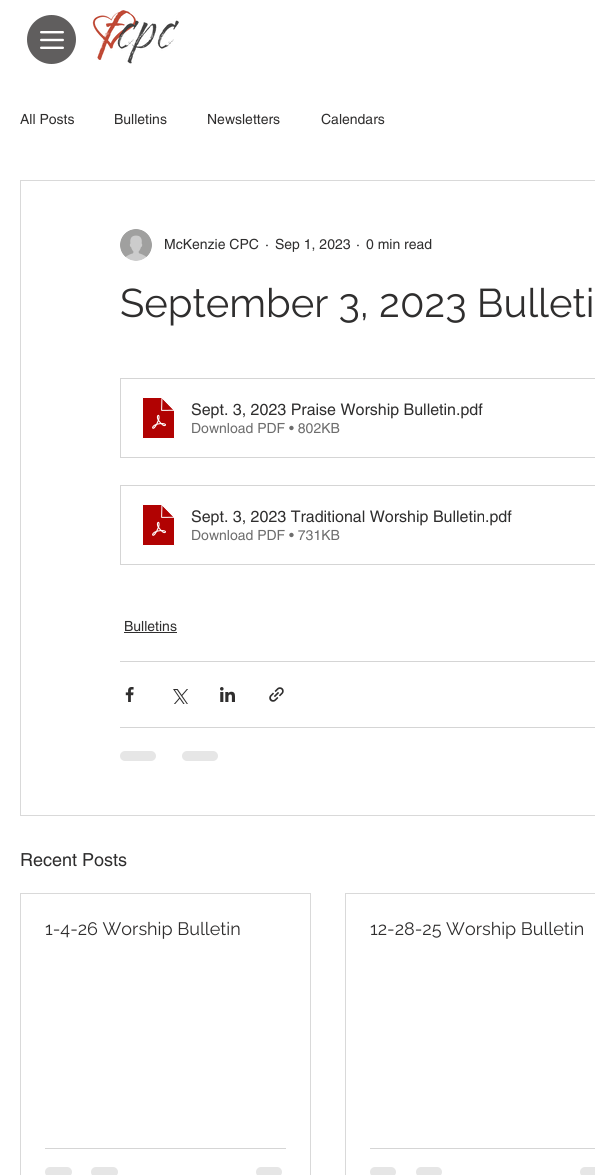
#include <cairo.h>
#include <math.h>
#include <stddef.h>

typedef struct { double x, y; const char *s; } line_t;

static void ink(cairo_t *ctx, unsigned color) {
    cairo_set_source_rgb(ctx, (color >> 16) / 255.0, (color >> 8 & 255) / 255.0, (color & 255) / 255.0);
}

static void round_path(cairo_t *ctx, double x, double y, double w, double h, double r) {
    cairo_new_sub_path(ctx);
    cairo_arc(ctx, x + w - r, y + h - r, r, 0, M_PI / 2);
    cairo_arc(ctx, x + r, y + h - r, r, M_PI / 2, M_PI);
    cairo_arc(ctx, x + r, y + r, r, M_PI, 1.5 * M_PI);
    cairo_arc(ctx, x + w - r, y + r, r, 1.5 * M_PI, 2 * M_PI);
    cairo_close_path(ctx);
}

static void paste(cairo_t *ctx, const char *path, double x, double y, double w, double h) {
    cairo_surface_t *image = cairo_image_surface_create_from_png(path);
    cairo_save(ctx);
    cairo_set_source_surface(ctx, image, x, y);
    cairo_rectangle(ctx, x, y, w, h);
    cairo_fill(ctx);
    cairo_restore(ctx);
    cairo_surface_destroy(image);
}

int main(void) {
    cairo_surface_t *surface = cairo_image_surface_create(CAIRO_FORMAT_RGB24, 595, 1175);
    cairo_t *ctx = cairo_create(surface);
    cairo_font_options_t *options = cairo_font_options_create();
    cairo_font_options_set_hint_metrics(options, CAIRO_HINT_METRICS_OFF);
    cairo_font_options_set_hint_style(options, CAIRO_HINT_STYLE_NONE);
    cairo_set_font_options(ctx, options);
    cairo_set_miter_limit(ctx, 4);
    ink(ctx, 0xFFFFFF);
    cairo_paint(ctx);
    ink(ctx, 0x605E5E);
    cairo_arc(ctx, 51.5, 39.5, 24.5, 0, 2 * M_PI);
    cairo_fill(ctx);
    paste(ctx, "media/1.png", 40, 31, 24, 18);
    paste(ctx, "media/2.png", 92, 10, 87, 54);
    cairo_select_font_face(ctx, "helvetica", CAIRO_FONT_SLANT_NORMAL, CAIRO_FONT_WEIGHT_NORMAL);
    cairo_set_font_size(ctx, 14);
    ink(ctx, 0x2F2E2E);
    {
        static const line_t items[] = {
            {20, 124, "All Posts"},
            {114, 124, "Bulletins"},
            {207, 124, "Newsletters"},
            {321, 124, "Calendars"},
        };
        for (size_t i = 0; i < sizeof items / sizeof *items; i++) {
            cairo_move_to(ctx, items[i].x, items[i].y);
            cairo_show_text(ctx, items[i].s);
        }
    }
    cairo_rectangle(ctx, 20.5, 180.5, 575, 635);
    ink(ctx, 0xD9D9D9);
    cairo_set_line_width(ctx, 1);
    cairo_stroke(ctx);
    paste(ctx, "media/3.png", 120, 229, 32, 32);
    ink(ctx, 0x2F2E2E);
    {
        static const line_t items[] = {
            {164, 249, "McKenzie CPC"},
            {265, 249, "·"},
            {275, 249, "Sep 1, 2023"},
            {356, 249, "·"},
            {366, 249, "0 min read"},
        };
        for (size_t i = 0; i < sizeof items / sizeof *items; i++) {
            cairo_move_to(ctx, items[i].x, items[i].y);
            cairo_show_text(ctx, items[i].s);
        }
    }
    cairo_select_font_face(ctx, "Raleway", CAIRO_FONT_SLANT_NORMAL, CAIRO_FONT_WEIGHT_NORMAL);
    cairo_set_font_size(ctx, 40);
    cairo_move_to(ctx, 120, 317);
    cairo_show_text(ctx, "September 3, 2023 Bulleti");
    cairo_rectangle(ctx, 120.5, 378.5, 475, 79);
    ink(ctx, 0xD5D5D5);
    cairo_stroke(ctx);
    paste(ctx, "media/4.png", 142, 397, 33, 42);
    cairo_select_font_face(ctx, "helvetica", CAIRO_FONT_SLANT_NORMAL, CAIRO_FONT_WEIGHT_NORMAL);
    cairo_set_font_size(ctx, 16);
    ink(ctx, 0x2F2E2E);
    cairo_move_to(ctx, 191, 415);
    cairo_show_text(ctx, "Sept. 3, 2023 Praise Worship Bulletin");
    cairo_move_to(ctx, 456, 415);
    cairo_show_text(ctx, ".pdf");
    cairo_set_font_size(ctx, 14);
    ink(ctx, 0x6D6D6D);
    cairo_move_to(ctx, 191, 433);
    cairo_show_text(ctx, "Download PDF • 802KB");
    cairo_rectangle(ctx, 120.5, 485.5, 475, 79);
    ink(ctx, 0xD5D5D5);
    cairo_stroke(ctx);
    paste(ctx, "media/4.png", 142, 504, 33, 42);
    cairo_set_font_size(ctx, 16);
    ink(ctx, 0x2F2E2E);
    cairo_move_to(ctx, 191, 522);
    cairo_show_text(ctx, "Sept. 3, 2023 Traditional Worship Bulletin");
    cairo_move_to(ctx, 485, 522);
    cairo_show_text(ctx, ".pdf");
    cairo_set_font_size(ctx, 14);
    ink(ctx, 0x6D6D6D);
    cairo_move_to(ctx, 191, 540);
    cairo_show_text(ctx, "Download PDF • 731KB");
    ink(ctx, 0x2F2E2E);
    cairo_move_to(ctx, 124, 631);
    cairo_show_text(ctx, "Bulletins");
    cairo_rectangle(ctx, 124, 632, 53, 1);
    cairo_fill(ctx);
    ink(ctx, 0xD5D5D5);
    cairo_rectangle(ctx, 120, 661, 475, 1);
    cairo_fill(ctx);
    paste(ctx, "media/5.png", 125, 687, 9, 15);
    paste(ctx, "media/6.png", 173, 689, 15, 15);
    paste(ctx, "media/7.png", 220, 687, 15, 15);
    paste(ctx, "media/8.png", 269, 687, 15, 15);
    cairo_rectangle(ctx, 120, 727, 475, 1);
    cairo_fill(ctx);
    ink(ctx, 0xE6E6E6);
    round_path(ctx, 120, 751, 36, 10, 5);
    cairo_fill(ctx);
    round_path(ctx, 182, 751, 36, 10, 5);
    cairo_fill(ctx);
    cairo_set_font_size(ctx, 18);
    ink(ctx, 0x2F2E2E);
    cairo_move_to(ctx, 20, 866);
    cairo_show_text(ctx, "Recent Posts");
    cairo_rectangle(ctx, 20.5, 893.5, 290, 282);
    ink(ctx, 0xD9D9D9);
    cairo_stroke(ctx);
    cairo_select_font_face(ctx, "Raleway", CAIRO_FONT_SLANT_NORMAL, CAIRO_FONT_WEIGHT_NORMAL);
    ink(ctx, 0x2F2E2E);
    cairo_move_to(ctx, 45, 935);
    cairo_show_text(ctx, "1-4-26 Worship Bulletin");
    ink(ctx, 0xD5D5D5);
    cairo_rectangle(ctx, 45, 1148, 241, 1);
    cairo_fill(ctx);
    ink(ctx, 0xE6E6E6);
    round_path(ctx, 45, 1167, 27, 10, 5);
    cairo_fill(ctx);
    round_path(ctx, 91, 1167, 27, 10, 5);
    cairo_fill(ctx);
    round_path(ctx, 256, 1167, 26, 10, 5);
    cairo_fill(ctx);
    cairo_rectangle(ctx, 345.5, 893.5, 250, 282);
    ink(ctx, 0xD9D9D9);
    cairo_stroke(ctx);
    ink(ctx, 0x2F2E2E);
    cairo_move_to(ctx, 370, 935);
    cairo_show_text(ctx, "12-28-25 Worship Bulletin");
    ink(ctx, 0xD5D5D5);
    cairo_rectangle(ctx, 370, 1148, 225, 1);
    cairo_fill(ctx);
    ink(ctx, 0xE6E6E6);
    round_path(ctx, 370, 1167, 26, 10, 5);
    cairo_fill(ctx);
    round_path(ctx, 416, 1167, 26, 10, 5);
    cairo_fill(ctx);
    round_path(ctx, 580, 1167, 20, 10, 5);
    cairo_fill(ctx);
    cairo_surface_write_to_png(surface, "image.png");
    cairo_font_options_destroy(options);
    cairo_destroy(ctx);
    cairo_surface_destroy(surface);
    return 0;
}
